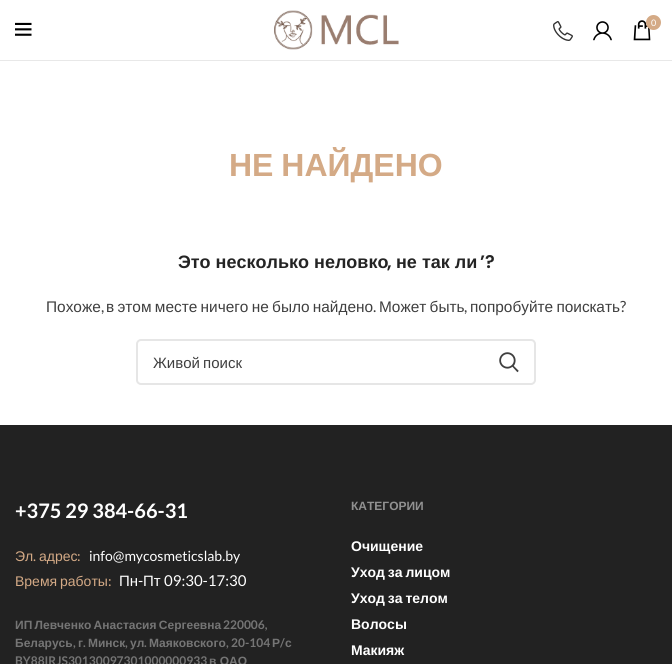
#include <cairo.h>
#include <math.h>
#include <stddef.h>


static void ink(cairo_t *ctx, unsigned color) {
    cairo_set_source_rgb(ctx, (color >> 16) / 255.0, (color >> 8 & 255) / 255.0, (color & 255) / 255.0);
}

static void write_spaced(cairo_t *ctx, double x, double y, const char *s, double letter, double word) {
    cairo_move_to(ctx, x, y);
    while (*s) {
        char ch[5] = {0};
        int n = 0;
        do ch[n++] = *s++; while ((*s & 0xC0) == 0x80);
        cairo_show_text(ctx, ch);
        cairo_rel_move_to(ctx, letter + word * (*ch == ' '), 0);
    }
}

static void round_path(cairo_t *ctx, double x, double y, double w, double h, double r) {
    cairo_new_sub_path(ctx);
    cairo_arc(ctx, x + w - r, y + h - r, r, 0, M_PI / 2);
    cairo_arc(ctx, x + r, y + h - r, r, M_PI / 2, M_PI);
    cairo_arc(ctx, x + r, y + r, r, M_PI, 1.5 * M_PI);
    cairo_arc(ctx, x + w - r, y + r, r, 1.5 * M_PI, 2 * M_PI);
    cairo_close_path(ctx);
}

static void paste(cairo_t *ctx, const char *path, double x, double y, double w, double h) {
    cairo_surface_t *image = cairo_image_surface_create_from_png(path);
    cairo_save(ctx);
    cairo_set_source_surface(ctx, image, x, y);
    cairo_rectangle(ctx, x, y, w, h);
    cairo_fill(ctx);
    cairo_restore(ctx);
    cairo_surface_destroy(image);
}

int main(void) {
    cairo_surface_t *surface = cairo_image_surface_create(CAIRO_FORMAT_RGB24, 672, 664);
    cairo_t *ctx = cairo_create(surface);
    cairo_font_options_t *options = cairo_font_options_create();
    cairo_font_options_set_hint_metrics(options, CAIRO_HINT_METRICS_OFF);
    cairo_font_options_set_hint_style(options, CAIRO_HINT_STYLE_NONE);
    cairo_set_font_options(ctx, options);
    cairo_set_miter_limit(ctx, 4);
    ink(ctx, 0xFFFFFF);
    cairo_paint(ctx);
    ink(ctx, 0xE8E8E8);
    cairo_rectangle(ctx, 0, 60, 672, 1);
    cairo_fill(ctx);
    paste(ctx, "media/1.png", 15, 22, 17, 14);
    paste(ctx, "media/2.png", 274, 10, 125, 40);
    paste(ctx, "media/3.png", 553, 21, 20, 20);
    paste(ctx, "media/4.png", 593, 21, 19, 20);
    paste(ctx, "media/5.png", 633, 20, 18, 21);
    ink(ctx, 0xD4AA86);
    cairo_arc(ctx, 653.5, 22.5, 7.5, 0, 2 * M_PI);
    cairo_fill(ctx);
    cairo_select_font_face(ctx, "Lato", CAIRO_FONT_SLANT_NORMAL, CAIRO_FONT_WEIGHT_NORMAL);
    cairo_set_font_size(ctx, 9);
    ink(ctx, 0xFFFFFF);
    cairo_move_to(ctx, 651, 26);
    cairo_show_text(ctx, "0");
    cairo_select_font_face(ctx, "Liberation Sans", CAIRO_FONT_SLANT_NORMAL, CAIRO_FONT_WEIGHT_BOLD);
    cairo_set_font_size(ctx, 32);
    ink(ctx, 0xD4AA86);
    write_spaced(ctx, 229, 176, "НЕ НАЙДЕНО", 0, -1);
    cairo_set_font_size(ctx, 18);
    ink(ctx, 0x242424);
    cairo_move_to(ctx, 178, 268);
    cairo_show_text(ctx, "Это несколько неловко");
    cairo_select_font_face(ctx, "Poppins SemiBold", CAIRO_FONT_SLANT_NORMAL, CAIRO_FONT_WEIGHT_NORMAL);
    cairo_move_to(ctx, 387, 268);
    cairo_show_text(ctx, ",");
    cairo_select_font_face(ctx, "Liberation Sans", CAIRO_FONT_SLANT_NORMAL, CAIRO_FONT_WEIGHT_BOLD);
    cairo_move_to(ctx, 396, 268);
    cairo_show_text(ctx, "не так ли");
    cairo_select_font_face(ctx, "Poppins SemiBold", CAIRO_FONT_SLANT_NORMAL, CAIRO_FONT_WEIGHT_NORMAL);
    cairo_move_to(ctx, 480, 268);
    cairo_show_text(ctx, "’?");
    cairo_select_font_face(ctx, "Liberation Sans", CAIRO_FONT_SLANT_NORMAL, CAIRO_FONT_WEIGHT_NORMAL);
    cairo_set_font_size(ctx, 15.4);
    ink(ctx, 0x3F3F3F);
    cairo_move_to(ctx, 46, 312);
    cairo_show_text(ctx, "Похоже");
    cairo_select_font_face(ctx, "Lato", CAIRO_FONT_SLANT_NORMAL, CAIRO_FONT_WEIGHT_NORMAL);
    cairo_move_to(ctx, 101, 312);
    cairo_show_text(ctx, ",");
    cairo_select_font_face(ctx, "Liberation Sans", CAIRO_FONT_SLANT_NORMAL, CAIRO_FONT_WEIGHT_NORMAL);
    write_spaced(ctx, 106, 312, "в этом месте ничего не было найдено", 0, -1);
    cairo_select_font_face(ctx, "Lato", CAIRO_FONT_SLANT_NORMAL, CAIRO_FONT_WEIGHT_NORMAL);
    cairo_move_to(ctx, 373, 312);
    cairo_show_text(ctx, ".");
    cairo_select_font_face(ctx, "Liberation Sans", CAIRO_FONT_SLANT_NORMAL, CAIRO_FONT_WEIGHT_NORMAL);
    write_spaced(ctx, 379, 312, "Может быть", 0, -1);
    cairo_select_font_face(ctx, "Lato", CAIRO_FONT_SLANT_NORMAL, CAIRO_FONT_WEIGHT_NORMAL);
    cairo_move_to(ctx, 464, 312);
    cairo_show_text(ctx, ",");
    cairo_select_font_face(ctx, "Liberation Sans", CAIRO_FONT_SLANT_NORMAL, CAIRO_FONT_WEIGHT_NORMAL);
    write_spaced(ctx, 470, 312, "попробуйте поискать", 0, -1);
    cairo_select_font_face(ctx, "Lato", CAIRO_FONT_SLANT_NORMAL, CAIRO_FONT_WEIGHT_NORMAL);
    cairo_move_to(ctx, 620, 312);
    cairo_show_text(ctx, "?");
    round_path(ctx, 137, 340, 398, 44, 4);
    ink(ctx, 0xE6E6E6);
    cairo_stroke(ctx);
    cairo_select_font_face(ctx, "Liberation Sans", CAIRO_FONT_SLANT_NORMAL, CAIRO_FONT_WEIGHT_NORMAL);
    cairo_set_font_size(ctx, 15);
    ink(ctx, 0x3F3F3F);
    write_spaced(ctx, 153, 368, "Живой поиск", 0, -1);
    paste(ctx, "media/6.png", 499, 352, 20, 21);
    ink(ctx, 0x222222);
    cairo_rectangle(ctx, 0, 425, 672, 239);
    cairo_fill(ctx);
    cairo_select_font_face(ctx, "Lato", CAIRO_FONT_SLANT_NORMAL, CAIRO_FONT_WEIGHT_BOLD);
    cairo_set_font_size(ctx, 20);
    ink(ctx, 0xFFFFFF);
    cairo_move_to(ctx, 15, 518);
    cairo_show_text(ctx, "+375 29 384-66-31");
    cairo_select_font_face(ctx, "Liberation Sans", CAIRO_FONT_SLANT_NORMAL, CAIRO_FONT_WEIGHT_NORMAL);
    cairo_set_font_size(ctx, 14);
    ink(ctx, 0xD4AA86);
    cairo_move_to(ctx, 15, 561);
    cairo_show_text(ctx, "Эл");
    cairo_select_font_face(ctx, "Lato", CAIRO_FONT_SLANT_NORMAL, CAIRO_FONT_WEIGHT_NORMAL);
    cairo_move_to(ctx, 33, 561);
    cairo_show_text(ctx, ".");
    cairo_select_font_face(ctx, "Liberation Sans", CAIRO_FONT_SLANT_NORMAL, CAIRO_FONT_WEIGHT_NORMAL);
    cairo_move_to(ctx, 39, 561);
    cairo_show_text(ctx, "адрес");
    cairo_select_font_face(ctx, "Lato", CAIRO_FONT_SLANT_NORMAL, CAIRO_FONT_WEIGHT_NORMAL);
    cairo_move_to(ctx, 77, 561);
    cairo_show_text(ctx, ":");
    ink(ctx, 0xFFFFFF);
    cairo_move_to(ctx, 89, 561);
    cairo_show_text(ctx, "info@mycosmeticslab.by");
    cairo_select_font_face(ctx, "Liberation Sans", CAIRO_FONT_SLANT_NORMAL, CAIRO_FONT_WEIGHT_NORMAL);
    ink(ctx, 0xD4AA86);
    write_spaced(ctx, 15, 586, "Время работы", 0, -1);
    cairo_select_font_face(ctx, "Lato", CAIRO_FONT_SLANT_NORMAL, CAIRO_FONT_WEIGHT_NORMAL);
    cairo_move_to(ctx, 108, 586);
    cairo_show_text(ctx, ":");
    cairo_select_font_face(ctx, "Liberation Sans", CAIRO_FONT_SLANT_NORMAL, CAIRO_FONT_WEIGHT_NORMAL);
    cairo_set_font_size(ctx, 15);
    ink(ctx, 0xFFFFFF);
    cairo_move_to(ctx, 119, 586);
    cairo_show_text(ctx, "Пн");
    cairo_select_font_face(ctx, "Lato", CAIRO_FONT_SLANT_NORMAL, CAIRO_FONT_WEIGHT_NORMAL);
    cairo_move_to(ctx, 138, 586);
    cairo_show_text(ctx, "-");
    cairo_select_font_face(ctx, "Liberation Sans", CAIRO_FONT_SLANT_NORMAL, CAIRO_FONT_WEIGHT_NORMAL);
    cairo_move_to(ctx, 143, 586);
    cairo_show_text(ctx, "Пт");
    cairo_select_font_face(ctx, "Lato", CAIRO_FONT_SLANT_NORMAL, CAIRO_FONT_WEIGHT_NORMAL);
    cairo_move_to(ctx, 164, 586);
    cairo_show_text(ctx, "09:30-17:30");
    cairo_select_font_face(ctx, "Liberation Sans", CAIRO_FONT_SLANT_NORMAL, CAIRO_FONT_WEIGHT_BOLD);
    cairo_set_font_size(ctx, 12);
    ink(ctx, 0x757575);
    write_spaced(ctx, 15, 629, "ИП Левченко Анастасия Сергеевна", 0, -1);
    cairo_select_font_face(ctx, "Lato", CAIRO_FONT_SLANT_NORMAL, CAIRO_FONT_WEIGHT_BOLD);
    cairo_move_to(ctx, 223, 629);
    cairo_show_text(ctx, "220006,");
    cairo_select_font_face(ctx, "Liberation Sans", CAIRO_FONT_SLANT_NORMAL, CAIRO_FONT_WEIGHT_BOLD);
    cairo_move_to(ctx, 15, 647);
    cairo_show_text(ctx, "Беларусь");
    cairo_select_font_face(ctx, "Lato", CAIRO_FONT_SLANT_NORMAL, CAIRO_FONT_WEIGHT_BOLD);
    cairo_move_to(ctx, 73, 647);
    cairo_show_text(ctx, ",");
    cairo_select_font_face(ctx, "Liberation Sans", CAIRO_FONT_SLANT_NORMAL, CAIRO_FONT_WEIGHT_BOLD);
    cairo_move_to(ctx, 78, 647);
    cairo_show_text(ctx, "г");
    cairo_select_font_face(ctx, "Lato", CAIRO_FONT_SLANT_NORMAL, CAIRO_FONT_WEIGHT_BOLD);
    cairo_move_to(ctx, 83, 647);
    cairo_show_text(ctx, ".");
    cairo_select_font_face(ctx, "Liberation Sans", CAIRO_FONT_SLANT_NORMAL, CAIRO_FONT_WEIGHT_BOLD);
    cairo_move_to(ctx, 88, 647);
    cairo_show_text(ctx, "Минск");
    cairo_select_font_face(ctx, "Lato", CAIRO_FONT_SLANT_NORMAL, CAIRO_FONT_WEIGHT_BOLD);
    cairo_move_to(ctx, 125, 647);
    cairo_show_text(ctx, ",");
    cairo_select_font_face(ctx, "Liberation Sans", CAIRO_FONT_SLANT_NORMAL, CAIRO_FONT_WEIGHT_BOLD);
    cairo_move_to(ctx, 130, 647);
    cairo_show_text(ctx, "ул");
    cairo_select_font_face(ctx, "Lato", CAIRO_FONT_SLANT_NORMAL, CAIRO_FONT_WEIGHT_BOLD);
    cairo_move_to(ctx, 144, 647);
    cairo_show_text(ctx, ".");
    cairo_select_font_face(ctx, "Liberation Sans", CAIRO_FONT_SLANT_NORMAL, CAIRO_FONT_WEIGHT_BOLD);
    cairo_move_to(ctx, 149, 647);
    cairo_show_text(ctx, "Маяковского");
    cairo_select_font_face(ctx, "Lato", CAIRO_FONT_SLANT_NORMAL, CAIRO_FONT_WEIGHT_BOLD);
    cairo_move_to(ctx, 226, 647);
    cairo_show_text(ctx, ", 20-104");
    cairo_select_font_face(ctx, "Liberation Sans", CAIRO_FONT_SLANT_NORMAL, CAIRO_FONT_WEIGHT_BOLD);
    cairo_move_to(ctx, 272, 647);
    cairo_show_text(ctx, "Р");
    cairo_select_font_face(ctx, "Lato", CAIRO_FONT_SLANT_NORMAL, CAIRO_FONT_WEIGHT_BOLD);
    cairo_move_to(ctx, 280, 647);
    cairo_show_text(ctx, "/");
    cairo_select_font_face(ctx, "Liberation Sans", CAIRO_FONT_SLANT_NORMAL, CAIRO_FONT_WEIGHT_BOLD);
    cairo_move_to(ctx, 285, 647);
    cairo_show_text(ctx, "с");
    cairo_select_font_face(ctx, "Lato", CAIRO_FONT_SLANT_NORMAL, CAIRO_FONT_WEIGHT_BOLD);
    cairo_move_to(ctx, 15, 665);
    cairo_show_text(ctx, "BY88IRJS30130097301000000933");
    cairo_select_font_face(ctx, "Liberation Sans", CAIRO_FONT_SLANT_NORMAL, CAIRO_FONT_WEIGHT_BOLD);
    cairo_move_to(ctx, 209, 665);
    cairo_show_text(ctx, "в ОАО");
    ink(ctx, 0x919191);
    cairo_move_to(ctx, 351, 510);
    cairo_show_text(ctx, "КАТЕГОРИИ");
    cairo_set_font_size(ctx, 14);
    ink(ctx, 0xFFFFFF);
    cairo_move_to(ctx, 351, 551);
    cairo_show_text(ctx, "Очищение");
    write_spaced(ctx, 351, 577, "Уход за лицом", 0, -1);
    write_spaced(ctx, 351, 603, "Уход за телом", 0, -1);
    cairo_move_to(ctx, 351, 629);
    cairo_show_text(ctx, "Волосы");
    cairo_move_to(ctx, 351, 655);
    cairo_show_text(ctx, "Макияж");
    cairo_surface_write_to_png(surface, "image.png");
    cairo_font_options_destroy(options);
    cairo_destroy(ctx);
    cairo_surface_destroy(surface);
    return 0;
}
